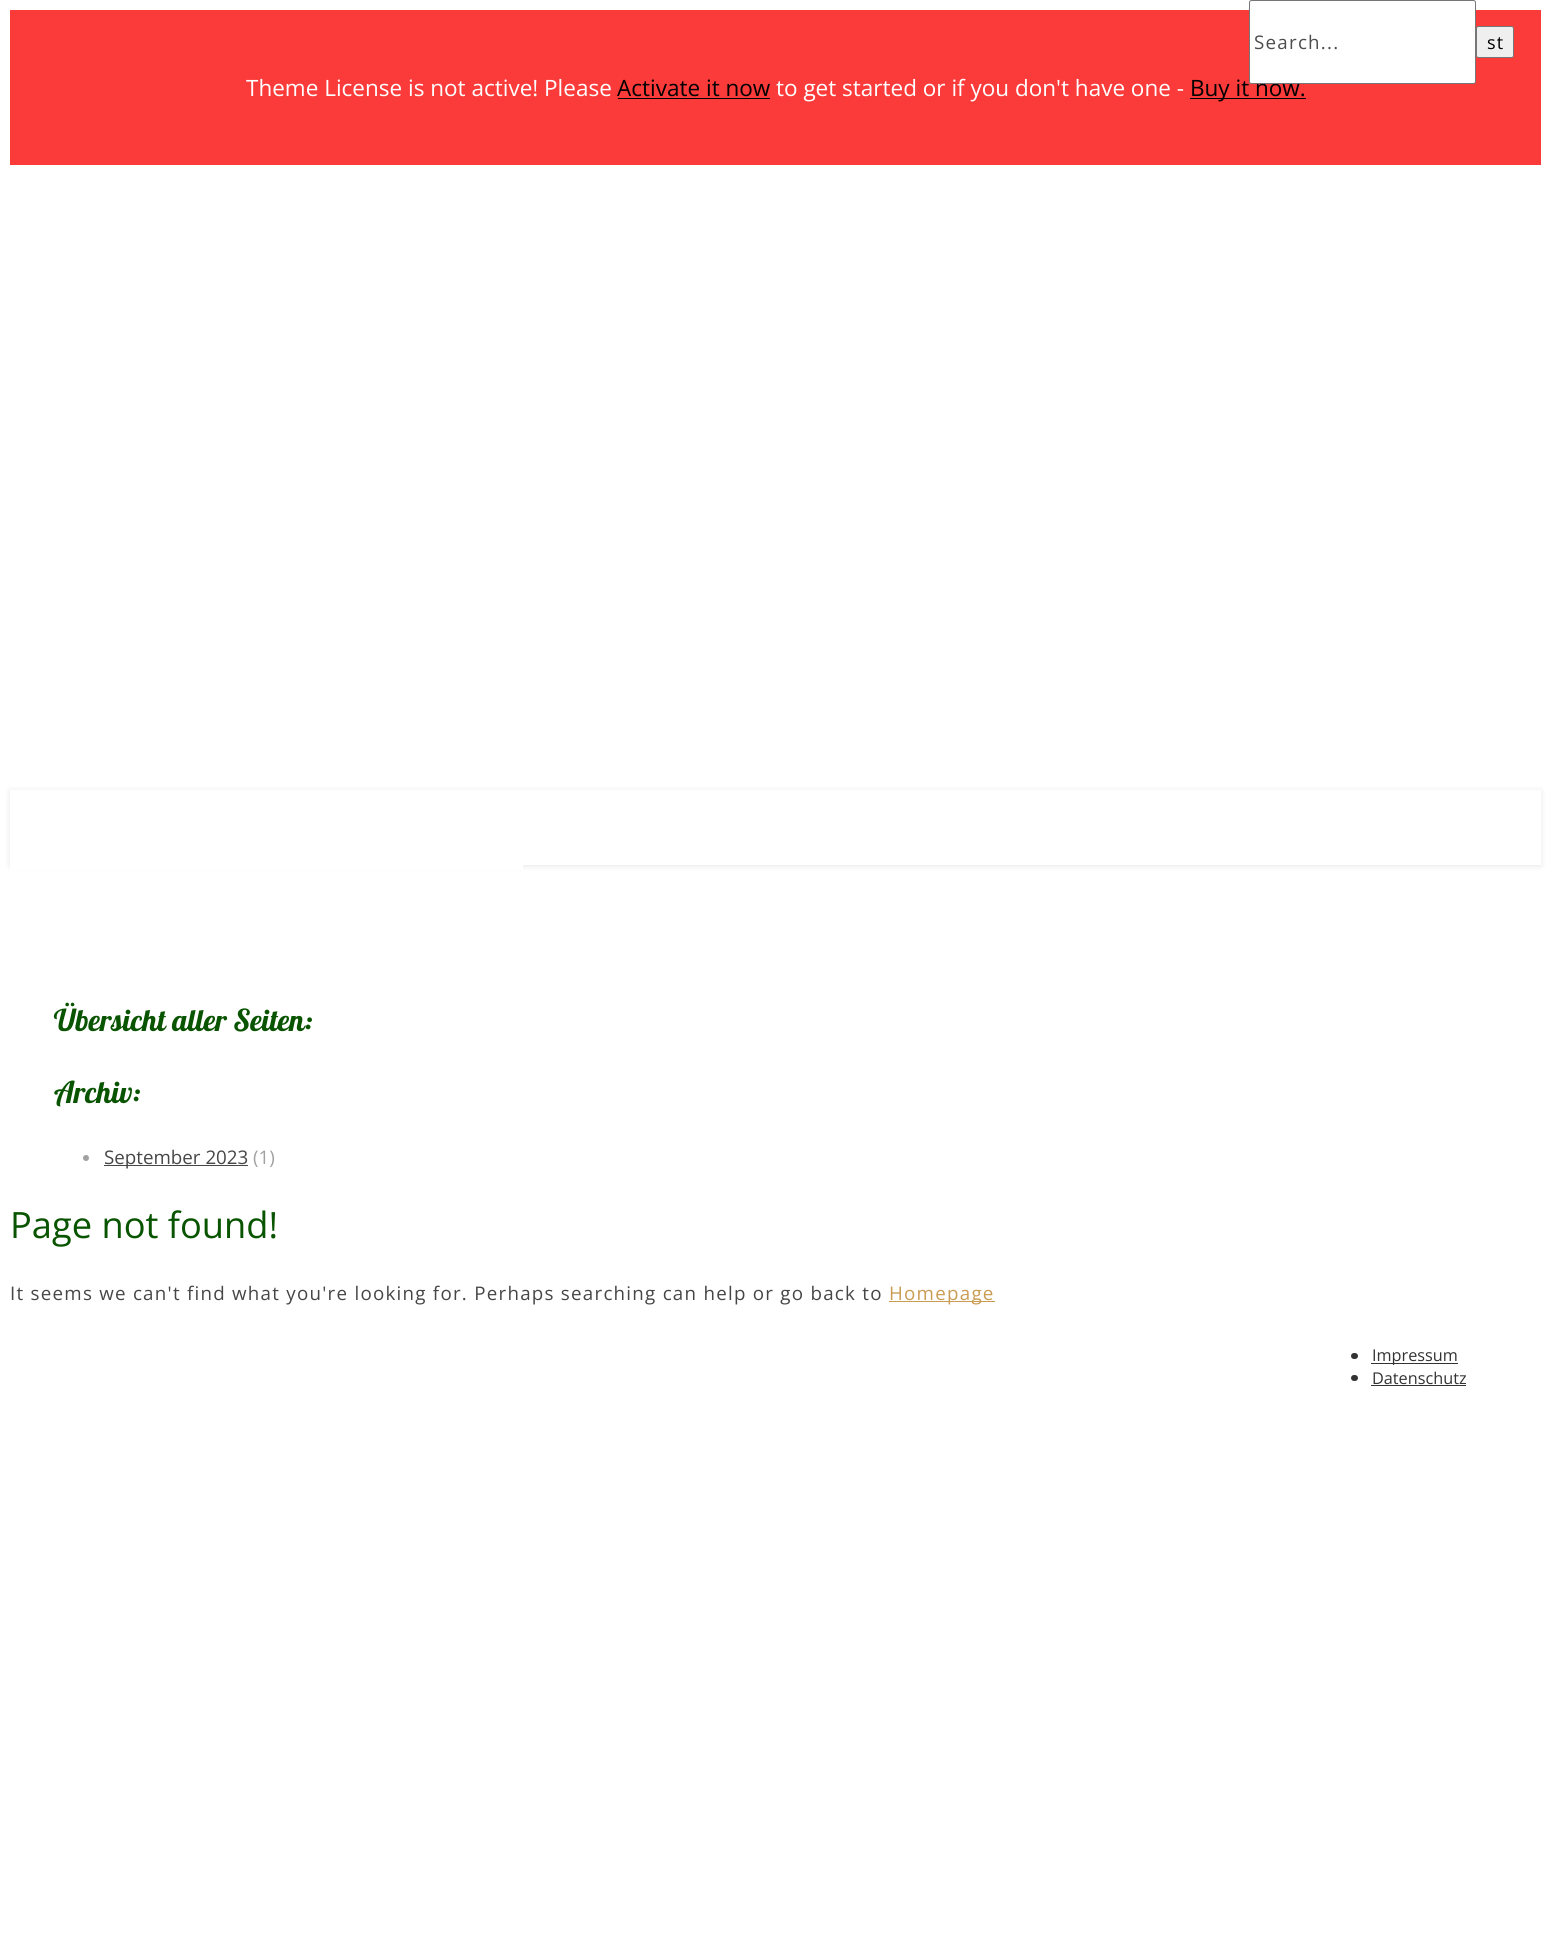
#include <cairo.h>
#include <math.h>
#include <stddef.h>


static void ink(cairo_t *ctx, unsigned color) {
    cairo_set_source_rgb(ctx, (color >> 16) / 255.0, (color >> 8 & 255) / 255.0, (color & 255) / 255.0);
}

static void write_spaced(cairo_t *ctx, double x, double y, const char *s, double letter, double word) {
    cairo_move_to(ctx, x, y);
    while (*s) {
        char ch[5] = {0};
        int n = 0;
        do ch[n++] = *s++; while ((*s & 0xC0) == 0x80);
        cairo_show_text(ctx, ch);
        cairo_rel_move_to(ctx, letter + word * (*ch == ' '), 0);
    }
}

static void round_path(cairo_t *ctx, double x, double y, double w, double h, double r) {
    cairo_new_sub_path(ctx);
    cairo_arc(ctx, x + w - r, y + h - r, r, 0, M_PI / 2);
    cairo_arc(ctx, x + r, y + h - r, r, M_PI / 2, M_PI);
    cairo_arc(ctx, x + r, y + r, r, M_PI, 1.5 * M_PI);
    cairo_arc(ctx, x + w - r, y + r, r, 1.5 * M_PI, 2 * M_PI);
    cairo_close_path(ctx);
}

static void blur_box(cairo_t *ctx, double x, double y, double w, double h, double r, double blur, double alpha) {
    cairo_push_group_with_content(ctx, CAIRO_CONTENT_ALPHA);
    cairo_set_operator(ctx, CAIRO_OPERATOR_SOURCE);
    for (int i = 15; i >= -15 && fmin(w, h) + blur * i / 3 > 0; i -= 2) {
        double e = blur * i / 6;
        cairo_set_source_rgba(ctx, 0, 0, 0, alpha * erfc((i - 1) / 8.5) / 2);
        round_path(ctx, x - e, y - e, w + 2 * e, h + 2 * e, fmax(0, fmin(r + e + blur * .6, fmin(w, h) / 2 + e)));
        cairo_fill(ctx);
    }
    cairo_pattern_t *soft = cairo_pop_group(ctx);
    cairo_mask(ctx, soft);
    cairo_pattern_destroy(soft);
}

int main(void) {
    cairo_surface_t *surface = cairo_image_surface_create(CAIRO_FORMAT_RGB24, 1551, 1939);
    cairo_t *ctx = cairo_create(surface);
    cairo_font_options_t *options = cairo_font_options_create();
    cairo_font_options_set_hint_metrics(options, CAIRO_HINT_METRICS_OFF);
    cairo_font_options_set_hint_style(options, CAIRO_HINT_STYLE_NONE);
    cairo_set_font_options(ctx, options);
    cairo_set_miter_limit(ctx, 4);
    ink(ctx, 0xFFFFFF);
    cairo_paint(ctx);
    cairo_save(ctx);
    cairo_set_fill_rule(ctx, CAIRO_FILL_RULE_EVEN_ODD);
    cairo_new_path(ctx);
    cairo_move_to(ctx, 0, 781);
    cairo_line_to(ctx, 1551, 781);
    cairo_line_to(ctx, 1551, 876);
    cairo_line_to(ctx, 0, 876);
    cairo_close_path(ctx);
    cairo_move_to(ctx, 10, 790);
    cairo_line_to(ctx, 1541, 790);
    cairo_line_to(ctx, 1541, 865);
    cairo_line_to(ctx, 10, 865);
    cairo_close_path(ctx);
    cairo_clip(ctx);
    ink(ctx, 0x000000);
    blur_box(ctx, 10, 791, 1531, 75, 0, 3, 0.1);
    cairo_restore(ctx);
    ink(ctx, 0xFB3A3A);
    cairo_rectangle(ctx, 10, 10, 1531, 155);
    cairo_fill(ctx);
    ink(ctx, 0x000000);
    cairo_rectangle(ctx, 1190, 98, 116, 1);
    cairo_fill(ctx);
    cairo_select_font_face(ctx, "Open Sans", CAIRO_FONT_SLANT_NORMAL, CAIRO_FONT_WEIGHT_NORMAL);
    cairo_set_font_size(ctx, 22.5);
    cairo_move_to(ctx, 1190, 96);
    cairo_show_text(ctx, "Buy it now.");
    ink(ctx, 0xFFFFFF);
    round_path(ctx, 1249.5, 0.5, 226, 83, 2);
    cairo_fill_preserve(ctx);
    ink(ctx, 0x767676);
    cairo_set_line_width(ctx, 1);
    cairo_stroke(ctx);
    cairo_set_font_size(ctx, 18.75);
    ink(ctx, 0x4D4D4D);
    write_spaced(ctx, 1254, 49, "Search...", 1.25, 0);
    ink(ctx, 0xEFEFEF);
    round_path(ctx, 1476.5, 26.5, 37, 31, 2);
    cairo_fill_preserve(ctx);
    ink(ctx, 0x767676);
    cairo_stroke(ctx);
    cairo_set_font_size(ctx, 18);
    ink(ctx, 0x000000);
    write_spaced(ctx, 1487, 49, "st", 1.25, 0);
    ink(ctx, 0xFFFFFF);
    cairo_rectangle(ctx, 10, 865, 513, 5);
    cairo_fill(ctx);
    cairo_select_font_face(ctx, "Pattaya", CAIRO_FONT_SLANT_NORMAL, CAIRO_FONT_WEIGHT_NORMAL);
    cairo_set_font_size(ctx, 30);
    ink(ctx, 0x085400);
    cairo_move_to(ctx, 54, 1031);
    cairo_show_text(ctx, "Übersicht aller Seiten:");
    cairo_move_to(ctx, 54, 1103);
    cairo_show_text(ctx, "Archiv:");
    ink(ctx, 0xA1A1A1);
    cairo_new_path(ctx);
    cairo_arc(ctx, 86, 1158, 3, 0, 2 * M_PI);
    cairo_fill(ctx);
    ink(ctx, 0x464646);
    cairo_rectangle(ctx, 104, 1165, 144, 1);
    cairo_fill(ctx);
    cairo_select_font_face(ctx, "Open Sans", CAIRO_FONT_SLANT_NORMAL, CAIRO_FONT_WEIGHT_NORMAL);
    cairo_set_font_size(ctx, 18.75);
    cairo_move_to(ctx, 104, 1164);
    cairo_show_text(ctx, "September 2023");
    ink(ctx, 0xA1A1A1);
    cairo_move_to(ctx, 253, 1164);
    cairo_show_text(ctx, "(1)");
    cairo_set_font_size(ctx, 36.25);
    ink(ctx, 0x085400);
    cairo_move_to(ctx, 10, 1238);
    cairo_show_text(ctx, "Page not found!");
    cairo_set_font_size(ctx, 18.75);
    ink(ctx, 0x464646);
    write_spaced(ctx, 10, 1300, "It seems we can't find what you're looking for. Perhaps searching can help or go back to", 1.25, 0);
    ink(ctx, 0xCA9B52);
    cairo_rectangle(ctx, 889, 1301, 106, 1);
    cairo_fill(ctx);
    write_spaced(ctx, 889, 1300, "Homepage", 1.25, 0);
    ink(ctx, 0x333333);
    round_path(ctx, 1351, 1353, 7, 6, 3);
    cairo_fill(ctx);
    cairo_rectangle(ctx, 1371, 1363, 87, 1);
    cairo_fill(ctx);
    cairo_set_font_size(ctx, 16.25);
    cairo_move_to(ctx, 1372, 1361);
    cairo_show_text(ctx, "Impressum");
    round_path(ctx, 1351, 1375, 7, 6, 3);
    cairo_fill(ctx);
    cairo_move_to(ctx, 1372, 1384);
    cairo_show_text(ctx, "Datenschutz");
    cairo_rectangle(ctx, 1371, 1385, 95, 1);
    cairo_fill(ctx);
    cairo_set_font_size(ctx, 22.5);
    ink(ctx, 0xFFFFFF);
    cairo_move_to(ctx, 246, 96);
    cairo_show_text(ctx, "Theme License is not active! Please");
    ink(ctx, 0x000000);
    cairo_move_to(ctx, 617, 96);
    cairo_show_text(ctx, "Activate it now");
    cairo_rectangle(ctx, 618, 98, 152, 1);
    cairo_fill(ctx);
    ink(ctx, 0xFFFFFF);
    cairo_move_to(ctx, 776, 96);
    cairo_show_text(ctx, "to get started or if you don't have one -");
    cairo_surface_write_to_png(surface, "image.png");
    cairo_font_options_destroy(options);
    cairo_destroy(ctx);
    cairo_surface_destroy(surface);
    return 0;
}
